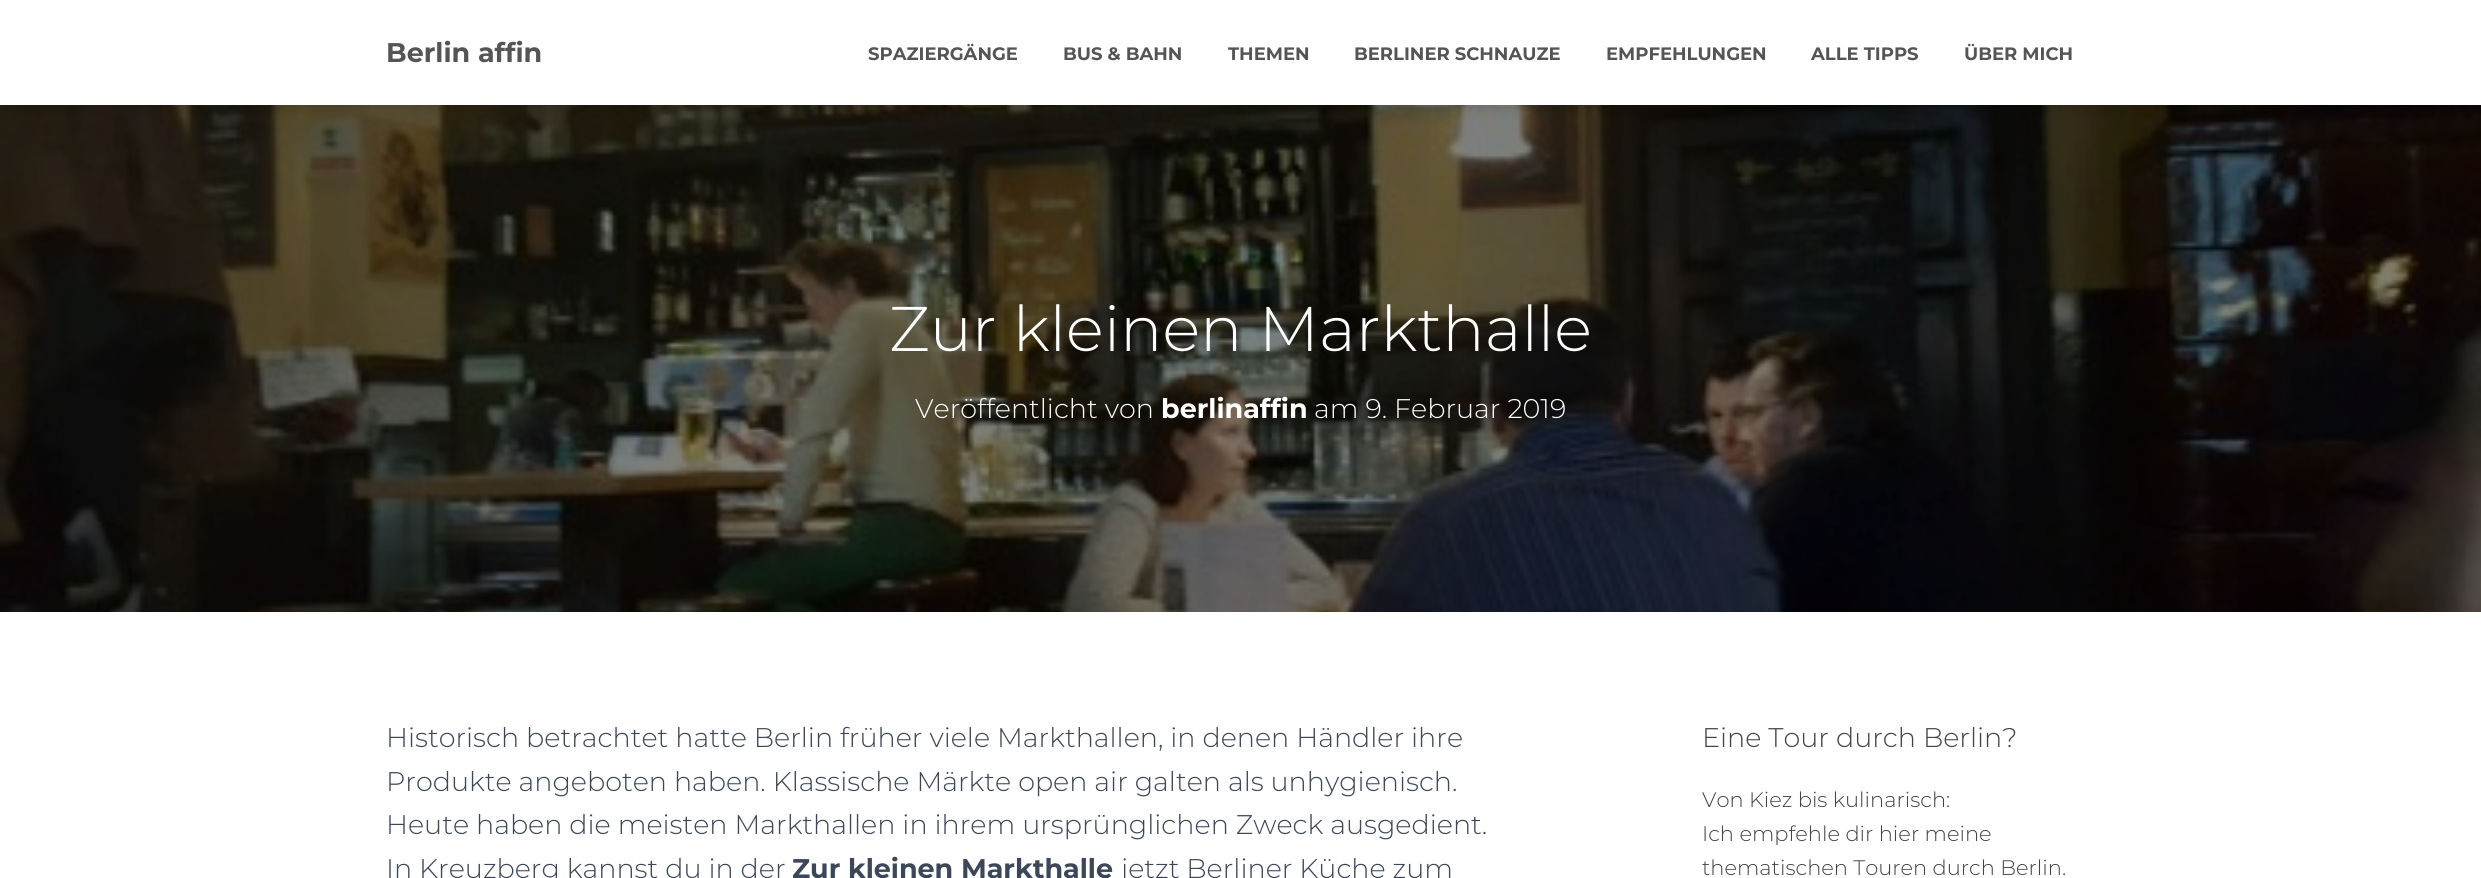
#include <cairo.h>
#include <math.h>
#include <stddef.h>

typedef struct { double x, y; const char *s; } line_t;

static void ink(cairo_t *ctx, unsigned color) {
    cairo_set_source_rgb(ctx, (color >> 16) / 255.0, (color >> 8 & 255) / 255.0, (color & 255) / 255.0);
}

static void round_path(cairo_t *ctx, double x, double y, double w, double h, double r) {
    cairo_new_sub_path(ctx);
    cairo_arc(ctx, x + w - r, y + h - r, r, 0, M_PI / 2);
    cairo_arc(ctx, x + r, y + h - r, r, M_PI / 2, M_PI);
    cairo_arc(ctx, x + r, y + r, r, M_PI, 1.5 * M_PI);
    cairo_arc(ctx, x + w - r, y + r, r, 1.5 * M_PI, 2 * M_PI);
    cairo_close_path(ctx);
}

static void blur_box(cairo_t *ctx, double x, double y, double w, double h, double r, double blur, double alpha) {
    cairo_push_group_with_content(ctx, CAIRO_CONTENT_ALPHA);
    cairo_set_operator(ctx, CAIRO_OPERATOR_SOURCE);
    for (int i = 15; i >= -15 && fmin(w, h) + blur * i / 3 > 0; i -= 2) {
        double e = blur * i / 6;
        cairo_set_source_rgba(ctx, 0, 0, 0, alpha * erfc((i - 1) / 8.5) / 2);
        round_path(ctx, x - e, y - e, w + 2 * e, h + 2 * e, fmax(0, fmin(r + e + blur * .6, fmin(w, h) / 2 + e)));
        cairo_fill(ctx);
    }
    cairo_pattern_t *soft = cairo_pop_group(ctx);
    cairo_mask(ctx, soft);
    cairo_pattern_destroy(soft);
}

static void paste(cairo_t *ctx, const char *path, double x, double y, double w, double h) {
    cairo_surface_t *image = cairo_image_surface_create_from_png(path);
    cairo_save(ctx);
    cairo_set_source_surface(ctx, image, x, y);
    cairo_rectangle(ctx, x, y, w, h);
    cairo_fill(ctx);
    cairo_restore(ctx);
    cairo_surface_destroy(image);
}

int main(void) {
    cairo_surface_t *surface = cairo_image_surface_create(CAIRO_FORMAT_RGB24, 2481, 878);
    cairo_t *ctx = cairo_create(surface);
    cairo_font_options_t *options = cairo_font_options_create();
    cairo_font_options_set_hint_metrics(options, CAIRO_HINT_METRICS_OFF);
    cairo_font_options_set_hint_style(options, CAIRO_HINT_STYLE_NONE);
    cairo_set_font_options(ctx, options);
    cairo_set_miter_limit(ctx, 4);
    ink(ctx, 0xFFFFFF);
    cairo_paint(ctx);
    paste(ctx, "media/1.png", 0, 105, 2481, 507);
    ink(ctx, 0x000000);
    blur_box(ctx, 6, 15, 2469, 93, 0, 7.5, 0.15);
    ink(ctx, 0xFFFFFF);
    cairo_rectangle(ctx, 0, 4, 2481, 101);
    cairo_fill(ctx);
    cairo_select_font_face(ctx, "Montserrat", CAIRO_FONT_SLANT_NORMAL, CAIRO_FONT_WEIGHT_BOLD);
    cairo_set_font_size(ctx, 27);
    ink(ctx, 0x555555);
    cairo_move_to(ctx, 386, 62);
    cairo_show_text(ctx, "Berlin affin");
    cairo_set_font_size(ctx, 18);
    {
        static const line_t items[] = {
            {868, 60, "SPAZIERGÄNGE"},
            {1063, 60, "BUS & BAHN"},
            {1228, 60, "THEMEN"},
            {1354, 60, "BERLINER SCHNAUZE"},
            {1606, 60, "EMPFEHLUNGEN"},
            {1811, 60, "ALLE TIPPS"},
            {1964, 60, "ÜBER MICH"},
        };
        for (size_t i = 0; i < sizeof items / sizeof *items; i++) {
            cairo_move_to(ctx, items[i].x, items[i].y);
            cairo_show_text(ctx, items[i].s);
        }
    }
    cairo_select_font_face(ctx, "Montserrat Light", CAIRO_FONT_SLANT_NORMAL, CAIRO_FONT_WEIGHT_NORMAL);
    cairo_set_font_size(ctx, 63);
    ink(ctx, 0xFFFFFF);
    cairo_move_to(ctx, 889, 351);
    cairo_show_text(ctx, "Zur kleinen Markthalle");
    cairo_set_font_size(ctx, 27);
    cairo_move_to(ctx, 915, 418);
    cairo_show_text(ctx, "Veröffentlicht von");
    cairo_select_font_face(ctx, "Montserrat", CAIRO_FONT_SLANT_NORMAL, CAIRO_FONT_WEIGHT_BOLD);
    cairo_move_to(ctx, 1161, 418);
    cairo_show_text(ctx, "berlinaffin");
    cairo_select_font_face(ctx, "Montserrat Light", CAIRO_FONT_SLANT_NORMAL, CAIRO_FONT_WEIGHT_NORMAL);
    cairo_move_to(ctx, 1314, 418);
    cairo_show_text(ctx, "am 9. Februar 2019");
    ink(ctx, 0x3C4858);
    {
        static const line_t items[] = {
            {386, 747, "Historisch betrachtet hatte Berlin früher viele Markthallen, in denen Händler ihre"},
            {386, 791, "Produkte angeboten haben. Klassische Märkte open air galten als unhygienisch."},
            {386, 834, "Heute haben die meisten Markthallen in ihrem ursprünglichen Zweck ausgedient."},
            {386, 878, "In Kreuzberg kannst du in der"},
        };
        for (size_t i = 0; i < sizeof items / sizeof *items; i++) {
            cairo_move_to(ctx, items[i].x, items[i].y);
            cairo_show_text(ctx, items[i].s);
        }
    }
    cairo_select_font_face(ctx, "Montserrat", CAIRO_FONT_SLANT_NORMAL, CAIRO_FONT_WEIGHT_BOLD);
    cairo_move_to(ctx, 792, 878);
    cairo_show_text(ctx, "Zur kleinen Markthalle");
    cairo_select_font_face(ctx, "Montserrat Light", CAIRO_FONT_SLANT_NORMAL, CAIRO_FONT_WEIGHT_NORMAL);
    cairo_move_to(ctx, 1121, 878);
    cairo_show_text(ctx, "jetzt Berliner Küche zum");
    ink(ctx, 0x444444);
    cairo_move_to(ctx, 1702, 747);
    cairo_show_text(ctx, "Eine Tour durch Berlin?");
    cairo_set_font_size(ctx, 21);
    {
        static const line_t items[] = {
            {1702, 807, "Von Kiez bis kulinarisch:"},
            {1702, 841, "Ich empfehle dir hier meine"},
            {1702, 875, "thematischen Touren durch Berlin."},
        };
        for (size_t i = 0; i < sizeof items / sizeof *items; i++) {
            cairo_move_to(ctx, items[i].x, items[i].y);
            cairo_show_text(ctx, items[i].s);
        }
    }
    cairo_surface_write_to_png(surface, "image.png");
    cairo_font_options_destroy(options);
    cairo_destroy(ctx);
    cairo_surface_destroy(surface);
    return 0;
}
